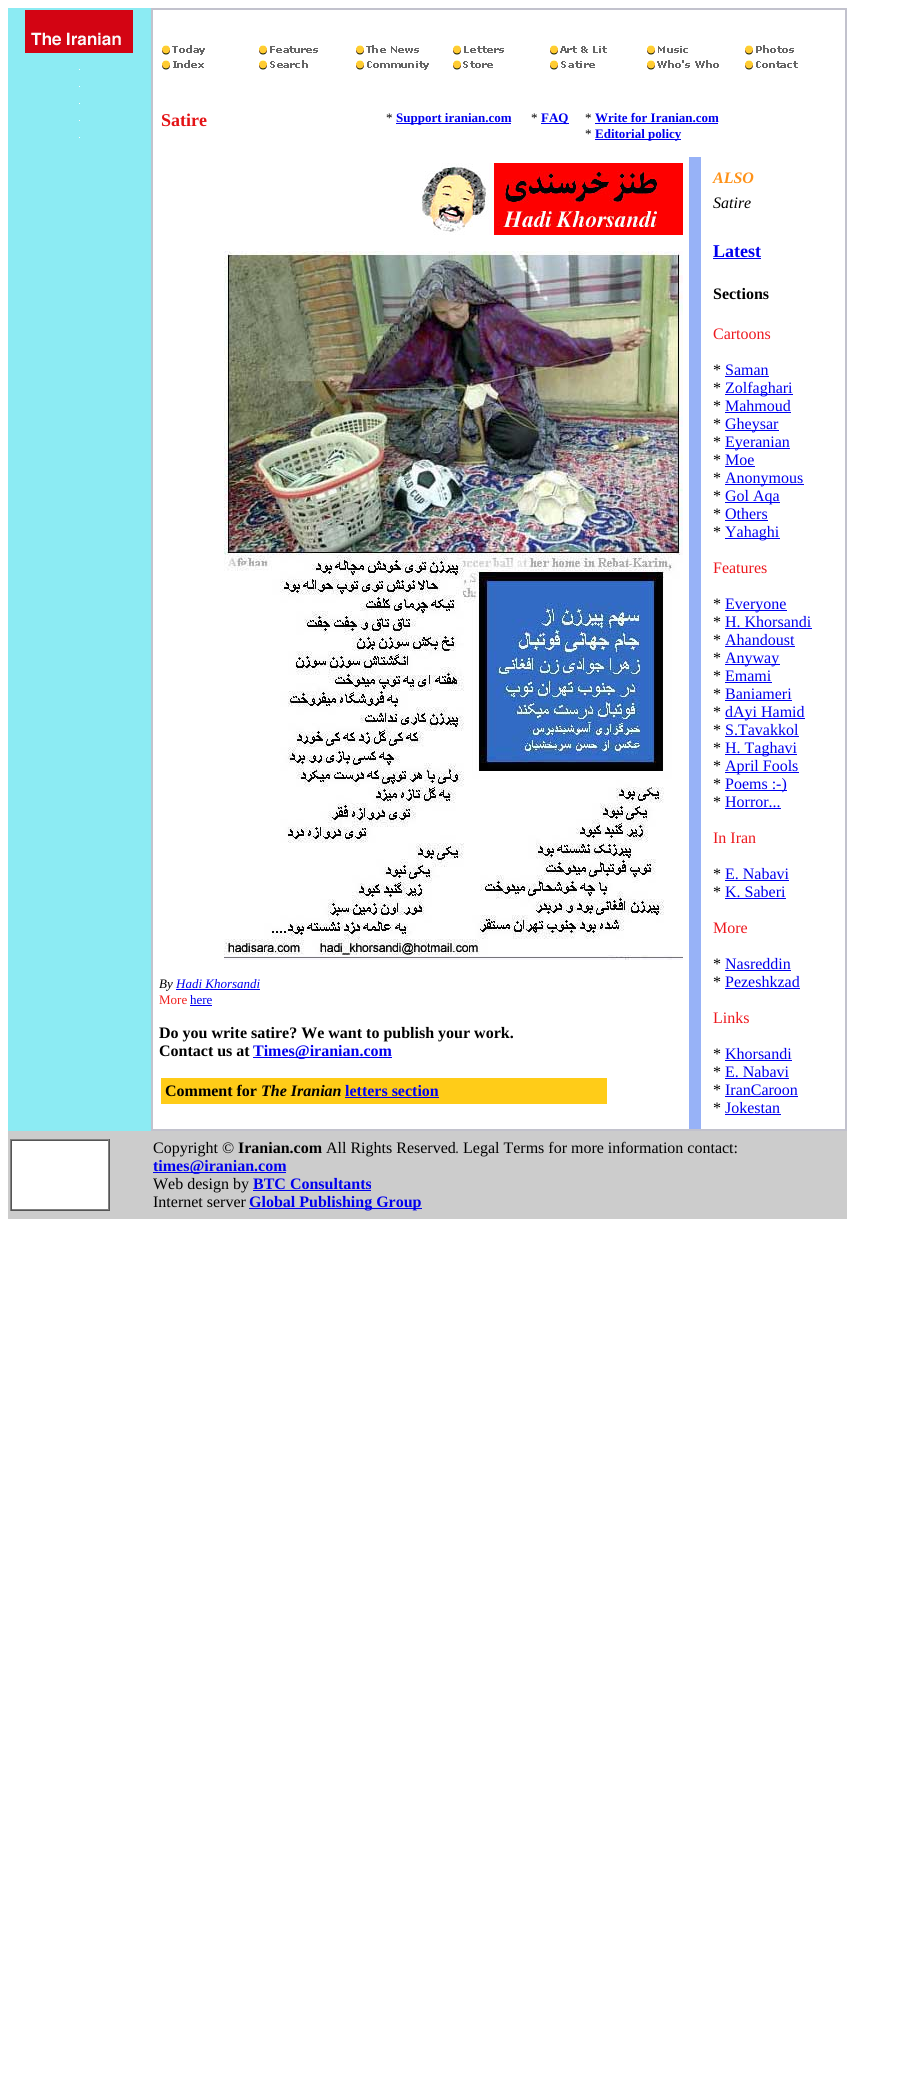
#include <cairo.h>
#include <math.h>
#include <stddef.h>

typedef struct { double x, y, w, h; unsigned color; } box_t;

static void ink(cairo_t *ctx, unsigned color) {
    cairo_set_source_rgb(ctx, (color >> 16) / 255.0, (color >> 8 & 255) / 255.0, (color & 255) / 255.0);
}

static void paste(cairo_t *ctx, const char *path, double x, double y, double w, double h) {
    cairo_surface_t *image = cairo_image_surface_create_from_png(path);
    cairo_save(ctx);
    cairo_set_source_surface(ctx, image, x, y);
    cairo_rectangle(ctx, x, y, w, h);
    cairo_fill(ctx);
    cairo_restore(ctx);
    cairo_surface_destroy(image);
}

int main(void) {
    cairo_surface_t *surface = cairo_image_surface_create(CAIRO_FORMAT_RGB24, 899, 2077);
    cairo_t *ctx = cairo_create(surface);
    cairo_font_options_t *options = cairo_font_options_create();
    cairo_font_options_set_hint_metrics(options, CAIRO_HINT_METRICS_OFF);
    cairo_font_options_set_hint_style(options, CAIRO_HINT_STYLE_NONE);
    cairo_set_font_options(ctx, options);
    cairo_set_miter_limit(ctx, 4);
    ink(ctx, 0xFFFFFF);
    cairo_paint(ctx);
    ink(ctx, 0x8CEBF3);
    cairo_rectangle(ctx, 8, 8, 143, 1123);
    cairo_fill(ctx);
    paste(ctx, "media/1.png", 25, 10, 108, 43);
    {
        static const box_t items[] = {
            {79, 69, 1, 1, 0xFDFDFD},
            {79, 86, 1, 1, 0xFFFFFF},
            {79, 103, 1, 1, 0xFFFFFF},
            {79, 120, 1, 1, 0xFFFFFF},
            {79, 137, 1, 1, 0xFFFFFF},
            {151, 8, 696, 1123, 0xC2C2CD},
            {153, 10, 692, 147, 0xFFFFFF},
        };
        for (size_t i = 0; i < sizeof items / sizeof *items; i++) {
            ink(ctx, items[i].color);
            cairo_rectangle(ctx, items[i].x, items[i].y, items[i].w, items[i].h);
            cairo_fill(ctx);
        }
    }
    paste(ctx, "media/2.png", 162, 45, 43, 10);
    paste(ctx, "media/3.png", 259, 45, 59, 10);
    paste(ctx, "media/4.png", 356, 45, 63, 10);
    paste(ctx, "media/5.png", 453, 45, 51, 10);
    paste(ctx, "media/6.png", 550, 45, 57, 10);
    paste(ctx, "media/7.png", 647, 45, 41, 10);
    paste(ctx, "media/8.png", 745, 45, 49, 10);
    paste(ctx, "media/9.png", 162, 60, 42, 10);
    paste(ctx, "media/10.png", 259, 60, 49, 10);
    paste(ctx, "media/11.png", 356, 60, 73, 10);
    paste(ctx, "media/12.png", 453, 60, 40, 10);
    paste(ctx, "media/13.png", 550, 60, 45, 10);
    paste(ctx, "media/14.png", 647, 60, 72, 10);
    paste(ctx, "media/15.png", 745, 60, 53, 10);
    cairo_select_font_face(ctx, "Liberation Serif", CAIRO_FONT_SLANT_NORMAL, CAIRO_FONT_WEIGHT_BOLD);
    cairo_set_font_size(ctx, 18);
    ink(ctx, 0xE41316);
    cairo_move_to(ctx, 161, 126);
    cairo_show_text(ctx, "Satire");
    cairo_select_font_face(ctx, "Liberation Serif", CAIRO_FONT_SLANT_NORMAL, CAIRO_FONT_WEIGHT_NORMAL);
    cairo_set_font_size(ctx, 13);
    ink(ctx, 0x000000);
    cairo_move_to(ctx, 386, 122);
    cairo_show_text(ctx, "*");
    ink(ctx, 0x0000EE);
    cairo_rectangle(ctx, 396, 123, 115, 1);
    cairo_fill(ctx);
    cairo_select_font_face(ctx, "Liberation Serif", CAIRO_FONT_SLANT_NORMAL, CAIRO_FONT_WEIGHT_BOLD);
    cairo_move_to(ctx, 396, 122);
    cairo_show_text(ctx, "Support iranian.com");
    cairo_select_font_face(ctx, "Liberation Serif", CAIRO_FONT_SLANT_NORMAL, CAIRO_FONT_WEIGHT_NORMAL);
    ink(ctx, 0x000000);
    cairo_move_to(ctx, 531, 122);
    cairo_show_text(ctx, "*");
    ink(ctx, 0x0000EE);
    cairo_rectangle(ctx, 541, 123, 28, 1);
    cairo_fill(ctx);
    cairo_select_font_face(ctx, "Liberation Serif", CAIRO_FONT_SLANT_NORMAL, CAIRO_FONT_WEIGHT_BOLD);
    cairo_move_to(ctx, 541, 122);
    cairo_show_text(ctx, "FAQ");
    cairo_select_font_face(ctx, "Liberation Serif", CAIRO_FONT_SLANT_NORMAL, CAIRO_FONT_WEIGHT_NORMAL);
    ink(ctx, 0x000000);
    cairo_move_to(ctx, 585, 122);
    cairo_show_text(ctx, "*");
    cairo_select_font_face(ctx, "Liberation Serif", CAIRO_FONT_SLANT_NORMAL, CAIRO_FONT_WEIGHT_BOLD);
    ink(ctx, 0x0000EE);
    cairo_move_to(ctx, 595, 122);
    cairo_show_text(ctx, "Write for Iranian.com");
    cairo_rectangle(ctx, 595, 123, 123, 1);
    cairo_fill(ctx);
    cairo_select_font_face(ctx, "Liberation Serif", CAIRO_FONT_SLANT_NORMAL, CAIRO_FONT_WEIGHT_NORMAL);
    ink(ctx, 0x000000);
    cairo_move_to(ctx, 585, 138);
    cairo_show_text(ctx, "*");
    ink(ctx, 0x0000EE);
    cairo_rectangle(ctx, 595, 139, 86, 1);
    cairo_fill(ctx);
    cairo_select_font_face(ctx, "Liberation Serif", CAIRO_FONT_SLANT_NORMAL, CAIRO_FONT_WEIGHT_BOLD);
    cairo_move_to(ctx, 595, 138);
    cairo_show_text(ctx, "Editorial policy");
    ink(ctx, 0xFFFFFF);
    cairo_rectangle(ctx, 153, 157, 536, 972);
    cairo_fill(ctx);
    paste(ctx, "media/16.png", 420, 163, 263, 72);
    paste(ctx, "media/17.png", 224, 251, 459, 709);
    cairo_select_font_face(ctx, "Liberation Serif", CAIRO_FONT_SLANT_ITALIC, CAIRO_FONT_WEIGHT_NORMAL);
    ink(ctx, 0x000000);
    cairo_move_to(ctx, 159, 988);
    cairo_show_text(ctx, "By");
    ink(ctx, 0x0000EE);
    cairo_move_to(ctx, 176, 988);
    cairo_show_text(ctx, "Hadi Khorsandi");
    cairo_rectangle(ctx, 176, 989, 84, 1);
    cairo_fill(ctx);
    cairo_select_font_face(ctx, "Liberation Serif", CAIRO_FONT_SLANT_NORMAL, CAIRO_FONT_WEIGHT_NORMAL);
    ink(ctx, 0xEF1F1D);
    cairo_move_to(ctx, 159, 1004);
    cairo_show_text(ctx, "More");
    ink(ctx, 0x0000EE);
    cairo_move_to(ctx, 190, 1004);
    cairo_show_text(ctx, "here");
    cairo_rectangle(ctx, 190, 1005, 22, 1);
    cairo_fill(ctx);
    cairo_select_font_face(ctx, "Liberation Serif", CAIRO_FONT_SLANT_NORMAL, CAIRO_FONT_WEIGHT_BOLD);
    cairo_set_font_size(ctx, 16);
    ink(ctx, 0x000000);
    cairo_move_to(ctx, 159, 1038);
    cairo_show_text(ctx, "Do you write satire? We want to publish your work.");
    cairo_move_to(ctx, 159, 1056);
    cairo_show_text(ctx, "Contact us at");
    ink(ctx, 0x0000EE);
    cairo_rectangle(ctx, 253, 1057, 139, 1);
    cairo_fill(ctx);
    cairo_move_to(ctx, 253, 1056);
    cairo_show_text(ctx, "Times@iranian.com");
    ink(ctx, 0xFFCC18);
    cairo_rectangle(ctx, 161, 1078, 446, 26);
    cairo_fill(ctx);
    ink(ctx, 0x000000);
    cairo_move_to(ctx, 165, 1096);
    cairo_show_text(ctx, "Comment for");
    cairo_select_font_face(ctx, "Liberation Serif", CAIRO_FONT_SLANT_ITALIC, CAIRO_FONT_WEIGHT_BOLD);
    cairo_move_to(ctx, 261, 1096);
    cairo_show_text(ctx, "The Iranian");
    cairo_select_font_face(ctx, "Liberation Serif", CAIRO_FONT_SLANT_NORMAL, CAIRO_FONT_WEIGHT_BOLD);
    ink(ctx, 0x0000EE);
    cairo_move_to(ctx, 345, 1096);
    cairo_show_text(ctx, "letters section");
    {
        static const box_t items[] = {
            {345, 1097, 94, 1, 0x0000EE},
            {689, 157, 12, 972, 0x97B2F7},
            {701, 157, 144, 972, 0xFFFFFF},
        };
        for (size_t i = 0; i < sizeof items / sizeof *items; i++) {
            ink(ctx, items[i].color);
            cairo_rectangle(ctx, items[i].x, items[i].y, items[i].w, items[i].h);
            cairo_fill(ctx);
        }
    }
    cairo_select_font_face(ctx, "Liberation Serif", CAIRO_FONT_SLANT_ITALIC, CAIRO_FONT_WEIGHT_BOLD);
    ink(ctx, 0xFF9218);
    cairo_move_to(ctx, 713, 183);
    cairo_show_text(ctx, "ALSO");
    cairo_select_font_face(ctx, "Liberation Serif", CAIRO_FONT_SLANT_ITALIC, CAIRO_FONT_WEIGHT_NORMAL);
    ink(ctx, 0x000000);
    cairo_move_to(ctx, 713, 208);
    cairo_show_text(ctx, "Satire");
    cairo_select_font_face(ctx, "Liberation Serif", CAIRO_FONT_SLANT_NORMAL, CAIRO_FONT_WEIGHT_BOLD);
    cairo_set_font_size(ctx, 18);
    ink(ctx, 0x0000EE);
    cairo_move_to(ctx, 713, 257);
    cairo_show_text(ctx, "Latest");
    cairo_rectangle(ctx, 713, 258, 48, 1);
    cairo_fill(ctx);
    cairo_set_font_size(ctx, 16);
    ink(ctx, 0x000000);
    cairo_move_to(ctx, 713, 299);
    cairo_show_text(ctx, "Sections");
    cairo_select_font_face(ctx, "Liberation Serif", CAIRO_FONT_SLANT_NORMAL, CAIRO_FONT_WEIGHT_NORMAL);
    ink(ctx, 0xED181E);
    cairo_move_to(ctx, 713, 339);
    cairo_show_text(ctx, "Cartoons");
    ink(ctx, 0x000000);
    cairo_move_to(ctx, 713, 375);
    cairo_show_text(ctx, "*");
    ink(ctx, 0x0000EE);
    cairo_move_to(ctx, 725, 375);
    cairo_show_text(ctx, "Saman");
    cairo_rectangle(ctx, 725, 376, 44, 1);
    cairo_fill(ctx);
    ink(ctx, 0x000000);
    cairo_move_to(ctx, 713, 393);
    cairo_show_text(ctx, "*");
    ink(ctx, 0x0000EE);
    cairo_rectangle(ctx, 725, 394, 68, 1);
    cairo_fill(ctx);
    cairo_move_to(ctx, 725, 393);
    cairo_show_text(ctx, "Zolfaghari");
    ink(ctx, 0x000000);
    cairo_move_to(ctx, 713, 411);
    cairo_show_text(ctx, "*");
    ink(ctx, 0x0000EE);
    cairo_move_to(ctx, 725, 411);
    cairo_show_text(ctx, "Mahmoud");
    cairo_rectangle(ctx, 725, 412, 66, 1);
    cairo_fill(ctx);
    ink(ctx, 0x000000);
    cairo_move_to(ctx, 713, 429);
    cairo_show_text(ctx, "*");
    ink(ctx, 0x0000EE);
    cairo_rectangle(ctx, 725, 430, 54, 1);
    cairo_fill(ctx);
    cairo_move_to(ctx, 725, 429);
    cairo_show_text(ctx, "Gheysar");
    ink(ctx, 0x000000);
    cairo_move_to(ctx, 713, 447);
    cairo_show_text(ctx, "*");
    ink(ctx, 0x0000EE);
    cairo_rectangle(ctx, 725, 448, 65, 1);
    cairo_fill(ctx);
    cairo_move_to(ctx, 725, 447);
    cairo_show_text(ctx, "Eyeranian");
    ink(ctx, 0x000000);
    cairo_move_to(ctx, 713, 465);
    cairo_show_text(ctx, "*");
    ink(ctx, 0x0000EE);
    cairo_move_to(ctx, 725, 465);
    cairo_show_text(ctx, "Moe");
    cairo_rectangle(ctx, 725, 466, 30, 1);
    cairo_fill(ctx);
    ink(ctx, 0x000000);
    cairo_move_to(ctx, 713, 483);
    cairo_show_text(ctx, "*");
    ink(ctx, 0x0000EE);
    cairo_rectangle(ctx, 725, 484, 79, 1);
    cairo_fill(ctx);
    cairo_move_to(ctx, 725, 483);
    cairo_show_text(ctx, "Anonymous");
    ink(ctx, 0x000000);
    cairo_move_to(ctx, 713, 501);
    cairo_show_text(ctx, "*");
    ink(ctx, 0x0000EE);
    cairo_rectangle(ctx, 725, 502, 55, 1);
    cairo_fill(ctx);
    cairo_move_to(ctx, 725, 501);
    cairo_show_text(ctx, "Gol Aqa");
    ink(ctx, 0x000000);
    cairo_move_to(ctx, 713, 519);
    cairo_show_text(ctx, "*");
    ink(ctx, 0x0000EE);
    cairo_move_to(ctx, 725, 519);
    cairo_show_text(ctx, "Others");
    cairo_rectangle(ctx, 725, 520, 43, 1);
    cairo_fill(ctx);
    ink(ctx, 0x000000);
    cairo_move_to(ctx, 713, 537);
    cairo_show_text(ctx, "*");
    ink(ctx, 0x0000EE);
    cairo_rectangle(ctx, 725, 538, 55, 1);
    cairo_fill(ctx);
    cairo_move_to(ctx, 725, 537);
    cairo_show_text(ctx, "Yahaghi");
    ink(ctx, 0xED181E);
    cairo_move_to(ctx, 713, 573);
    cairo_show_text(ctx, "Features");
    ink(ctx, 0x000000);
    cairo_move_to(ctx, 713, 609);
    cairo_show_text(ctx, "*");
    ink(ctx, 0x0000EE);
    cairo_rectangle(ctx, 725, 610, 62, 1);
    cairo_fill(ctx);
    cairo_move_to(ctx, 725, 609);
    cairo_show_text(ctx, "Everyone");
    ink(ctx, 0x000000);
    cairo_move_to(ctx, 713, 627);
    cairo_show_text(ctx, "*");
    ink(ctx, 0x0000EE);
    cairo_move_to(ctx, 725, 627);
    cairo_show_text(ctx, "H. Khorsandi");
    cairo_rectangle(ctx, 725, 628, 87, 1);
    cairo_fill(ctx);
    ink(ctx, 0x000000);
    cairo_move_to(ctx, 713, 645);
    cairo_show_text(ctx, "*");
    ink(ctx, 0x0000EE);
    cairo_move_to(ctx, 725, 645);
    cairo_show_text(ctx, "Ahandoust");
    cairo_rectangle(ctx, 725, 646, 70, 1);
    cairo_fill(ctx);
    ink(ctx, 0x000000);
    cairo_move_to(ctx, 713, 663);
    cairo_show_text(ctx, "*");
    ink(ctx, 0x0000EE);
    cairo_rectangle(ctx, 725, 664, 55, 1);
    cairo_fill(ctx);
    cairo_move_to(ctx, 725, 663);
    cairo_show_text(ctx, "Anyway");
    ink(ctx, 0x000000);
    cairo_move_to(ctx, 713, 681);
    cairo_show_text(ctx, "*");
    ink(ctx, 0x0000EE);
    cairo_move_to(ctx, 725, 681);
    cairo_show_text(ctx, "Emami");
    cairo_rectangle(ctx, 725, 682, 47, 1);
    cairo_fill(ctx);
    ink(ctx, 0x000000);
    cairo_move_to(ctx, 713, 699);
    cairo_show_text(ctx, "*");
    ink(ctx, 0x0000EE);
    cairo_move_to(ctx, 725, 699);
    cairo_show_text(ctx, "Baniameri");
    cairo_rectangle(ctx, 725, 700, 67, 1);
    cairo_fill(ctx);
    ink(ctx, 0x000000);
    cairo_move_to(ctx, 713, 717);
    cairo_show_text(ctx, "*");
    ink(ctx, 0x0000EE);
    cairo_rectangle(ctx, 725, 718, 80, 1);
    cairo_fill(ctx);
    cairo_move_to(ctx, 725, 717);
    cairo_show_text(ctx, "dAyi Hamid");
    ink(ctx, 0x000000);
    cairo_move_to(ctx, 713, 735);
    cairo_show_text(ctx, "*");
    ink(ctx, 0x0000EE);
    cairo_move_to(ctx, 725, 735);
    cairo_show_text(ctx, "S.Tavakkol");
    cairo_rectangle(ctx, 725, 736, 74, 1);
    cairo_fill(ctx);
    ink(ctx, 0x000000);
    cairo_move_to(ctx, 713, 753);
    cairo_show_text(ctx, "*");
    ink(ctx, 0x0000EE);
    cairo_rectangle(ctx, 725, 754, 72, 1);
    cairo_fill(ctx);
    cairo_move_to(ctx, 725, 753);
    cairo_show_text(ctx, "H. Taghavi");
    ink(ctx, 0x000000);
    cairo_move_to(ctx, 713, 771);
    cairo_show_text(ctx, "*");
    ink(ctx, 0x0000EE);
    cairo_rectangle(ctx, 725, 772, 74, 1);
    cairo_fill(ctx);
    cairo_move_to(ctx, 725, 771);
    cairo_show_text(ctx, "April Fools");
    ink(ctx, 0x000000);
    cairo_move_to(ctx, 713, 789);
    cairo_show_text(ctx, "*");
    ink(ctx, 0x0000EE);
    cairo_rectangle(ctx, 725, 790, 62, 1);
    cairo_fill(ctx);
    cairo_move_to(ctx, 725, 789);
    cairo_show_text(ctx, "Poems :-)");
    ink(ctx, 0x000000);
    cairo_move_to(ctx, 713, 807);
    cairo_show_text(ctx, "*");
    ink(ctx, 0x0000EE);
    cairo_move_to(ctx, 725, 807);
    cairo_show_text(ctx, "Horror...");
    cairo_rectangle(ctx, 725, 808, 56, 1);
    cairo_fill(ctx);
    ink(ctx, 0xED181E);
    cairo_move_to(ctx, 713, 843);
    cairo_show_text(ctx, "In Iran");
    ink(ctx, 0x000000);
    cairo_move_to(ctx, 713, 879);
    cairo_show_text(ctx, "*");
    ink(ctx, 0x0000EE);
    cairo_move_to(ctx, 725, 879);
    cairo_show_text(ctx, "E. Nabavi");
    cairo_rectangle(ctx, 725, 880, 64, 1);
    cairo_fill(ctx);
    ink(ctx, 0x000000);
    cairo_move_to(ctx, 713, 897);
    cairo_show_text(ctx, "*");
    ink(ctx, 0x0000EE);
    cairo_move_to(ctx, 725, 897);
    cairo_show_text(ctx, "K. Saberi");
    cairo_rectangle(ctx, 725, 898, 61, 1);
    cairo_fill(ctx);
    ink(ctx, 0xED181E);
    cairo_move_to(ctx, 713, 933);
    cairo_show_text(ctx, "More");
    ink(ctx, 0x000000);
    cairo_move_to(ctx, 713, 969);
    cairo_show_text(ctx, "*");
    ink(ctx, 0x0000EE);
    cairo_move_to(ctx, 725, 969);
    cairo_show_text(ctx, "Nasreddin");
    cairo_rectangle(ctx, 725, 970, 66, 1);
    cairo_fill(ctx);
    ink(ctx, 0x000000);
    cairo_move_to(ctx, 713, 987);
    cairo_show_text(ctx, "*");
    ink(ctx, 0x0000EE);
    cairo_move_to(ctx, 725, 987);
    cairo_show_text(ctx, "Pezeshkzad");
    cairo_rectangle(ctx, 725, 988, 75, 1);
    cairo_fill(ctx);
    ink(ctx, 0xED181E);
    cairo_move_to(ctx, 713, 1023);
    cairo_show_text(ctx, "Links");
    ink(ctx, 0x000000);
    cairo_move_to(ctx, 713, 1059);
    cairo_show_text(ctx, "*");
    ink(ctx, 0x0000EE);
    cairo_move_to(ctx, 725, 1059);
    cairo_show_text(ctx, "Khorsandi");
    cairo_rectangle(ctx, 725, 1060, 67, 1);
    cairo_fill(ctx);
    ink(ctx, 0x000000);
    cairo_move_to(ctx, 713, 1077);
    cairo_show_text(ctx, "*");
    ink(ctx, 0x0000EE);
    cairo_move_to(ctx, 725, 1077);
    cairo_show_text(ctx, "E. Nabavi");
    cairo_rectangle(ctx, 725, 1078, 64, 1);
    cairo_fill(ctx);
    ink(ctx, 0x000000);
    cairo_move_to(ctx, 713, 1095);
    cairo_show_text(ctx, "*");
    ink(ctx, 0x0000EE);
    cairo_move_to(ctx, 725, 1095);
    cairo_show_text(ctx, "IranCaroon");
    cairo_rectangle(ctx, 725, 1096, 73, 1);
    cairo_fill(ctx);
    ink(ctx, 0x000000);
    cairo_move_to(ctx, 713, 1113);
    cairo_show_text(ctx, "*");
    ink(ctx, 0x0000EE);
    cairo_move_to(ctx, 725, 1113);
    cairo_show_text(ctx, "Jokestan");
    {
        static const box_t items[] = {
            {725, 1114, 56, 1, 0x0000EE},
            {8, 1131, 839, 88, 0xCCCCCC},
            {10, 1139, 100, 1, 0x808080},
            {109, 1139, 1, 72, 0x555555},
            {10, 1210, 100, 1, 0x555555},
            {10, 1139, 1, 72, 0x808080},
            {12, 1141, 96, 68, 0xFFFFFF},
            {11, 1140, 98, 1, 0x555555},
            {108, 1140, 1, 70, 0x808080},
            {11, 1209, 98, 1, 0x808080},
            {11, 1140, 1, 70, 0x555555},
        };
        for (size_t i = 0; i < sizeof items / sizeof *items; i++) {
            ink(ctx, items[i].color);
            cairo_rectangle(ctx, items[i].x, items[i].y, items[i].w, items[i].h);
            cairo_fill(ctx);
        }
    }
    ink(ctx, 0x000000);
    cairo_move_to(ctx, 153, 1153);
    cairo_show_text(ctx, "Copyright ©");
    cairo_select_font_face(ctx, "Liberation Serif", CAIRO_FONT_SLANT_NORMAL, CAIRO_FONT_WEIGHT_BOLD);
    cairo_move_to(ctx, 238, 1153);
    cairo_show_text(ctx, "Iranian.com");
    cairo_select_font_face(ctx, "Liberation Serif", CAIRO_FONT_SLANT_NORMAL, CAIRO_FONT_WEIGHT_NORMAL);
    cairo_move_to(ctx, 326, 1153);
    cairo_show_text(ctx, "All Rights Reserved");
    ink(ctx, 0x333333);
    cairo_move_to(ctx, 455, 1153);
    cairo_show_text(ctx, ".");
    ink(ctx, 0x000000);
    cairo_move_to(ctx, 463, 1153);
    cairo_show_text(ctx, "Legal Terms for more information contact:");
    ink(ctx, 0x0000EE);
    cairo_rectangle(ctx, 153, 1172, 133, 1);
    cairo_fill(ctx);
    cairo_select_font_face(ctx, "Liberation Serif", CAIRO_FONT_SLANT_NORMAL, CAIRO_FONT_WEIGHT_BOLD);
    cairo_move_to(ctx, 153, 1171);
    cairo_show_text(ctx, "times@iranian.com");
    cairo_select_font_face(ctx, "Liberation Serif", CAIRO_FONT_SLANT_NORMAL, CAIRO_FONT_WEIGHT_NORMAL);
    ink(ctx, 0x000000);
    cairo_move_to(ctx, 153, 1189);
    cairo_show_text(ctx, "Web design by");
    cairo_select_font_face(ctx, "Liberation Serif", CAIRO_FONT_SLANT_NORMAL, CAIRO_FONT_WEIGHT_BOLD);
    ink(ctx, 0x0000EE);
    cairo_move_to(ctx, 253, 1189);
    cairo_show_text(ctx, "BTC Consultants");
    cairo_rectangle(ctx, 253, 1190, 118, 1);
    cairo_fill(ctx);
    cairo_select_font_face(ctx, "Liberation Serif", CAIRO_FONT_SLANT_NORMAL, CAIRO_FONT_WEIGHT_NORMAL);
    ink(ctx, 0x000000);
    cairo_move_to(ctx, 153, 1207);
    cairo_show_text(ctx, "Internet server");
    ink(ctx, 0x0000EE);
    cairo_rectangle(ctx, 249, 1208, 173, 1);
    cairo_fill(ctx);
    cairo_select_font_face(ctx, "Liberation Serif", CAIRO_FONT_SLANT_NORMAL, CAIRO_FONT_WEIGHT_BOLD);
    cairo_move_to(ctx, 249, 1207);
    cairo_show_text(ctx, "Global Publishing Group");
    cairo_surface_write_to_png(surface, "image.png");
    cairo_font_options_destroy(options);
    cairo_destroy(ctx);
    cairo_surface_destroy(surface);
    return 0;
}
